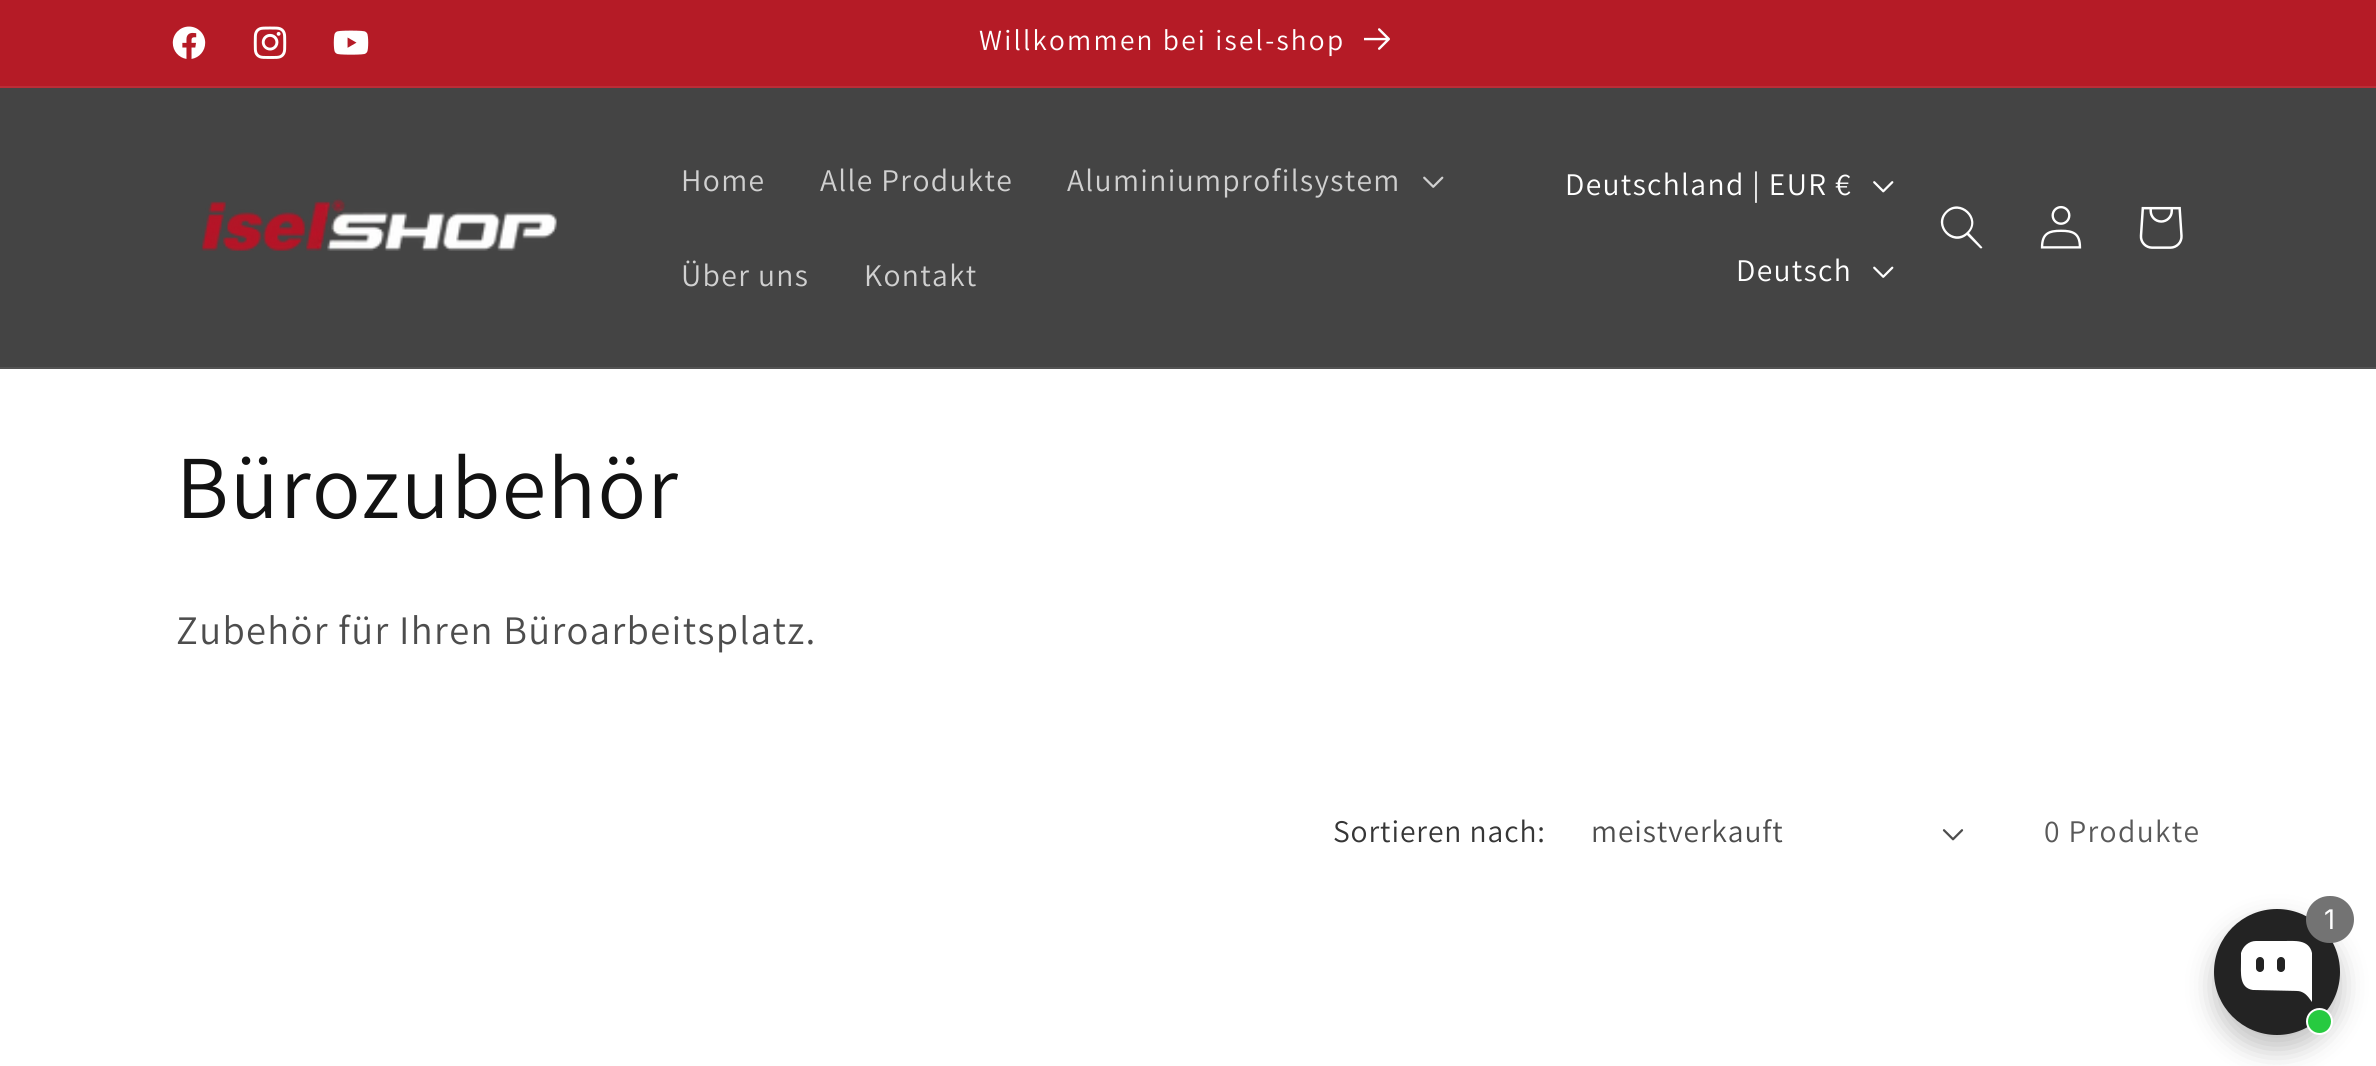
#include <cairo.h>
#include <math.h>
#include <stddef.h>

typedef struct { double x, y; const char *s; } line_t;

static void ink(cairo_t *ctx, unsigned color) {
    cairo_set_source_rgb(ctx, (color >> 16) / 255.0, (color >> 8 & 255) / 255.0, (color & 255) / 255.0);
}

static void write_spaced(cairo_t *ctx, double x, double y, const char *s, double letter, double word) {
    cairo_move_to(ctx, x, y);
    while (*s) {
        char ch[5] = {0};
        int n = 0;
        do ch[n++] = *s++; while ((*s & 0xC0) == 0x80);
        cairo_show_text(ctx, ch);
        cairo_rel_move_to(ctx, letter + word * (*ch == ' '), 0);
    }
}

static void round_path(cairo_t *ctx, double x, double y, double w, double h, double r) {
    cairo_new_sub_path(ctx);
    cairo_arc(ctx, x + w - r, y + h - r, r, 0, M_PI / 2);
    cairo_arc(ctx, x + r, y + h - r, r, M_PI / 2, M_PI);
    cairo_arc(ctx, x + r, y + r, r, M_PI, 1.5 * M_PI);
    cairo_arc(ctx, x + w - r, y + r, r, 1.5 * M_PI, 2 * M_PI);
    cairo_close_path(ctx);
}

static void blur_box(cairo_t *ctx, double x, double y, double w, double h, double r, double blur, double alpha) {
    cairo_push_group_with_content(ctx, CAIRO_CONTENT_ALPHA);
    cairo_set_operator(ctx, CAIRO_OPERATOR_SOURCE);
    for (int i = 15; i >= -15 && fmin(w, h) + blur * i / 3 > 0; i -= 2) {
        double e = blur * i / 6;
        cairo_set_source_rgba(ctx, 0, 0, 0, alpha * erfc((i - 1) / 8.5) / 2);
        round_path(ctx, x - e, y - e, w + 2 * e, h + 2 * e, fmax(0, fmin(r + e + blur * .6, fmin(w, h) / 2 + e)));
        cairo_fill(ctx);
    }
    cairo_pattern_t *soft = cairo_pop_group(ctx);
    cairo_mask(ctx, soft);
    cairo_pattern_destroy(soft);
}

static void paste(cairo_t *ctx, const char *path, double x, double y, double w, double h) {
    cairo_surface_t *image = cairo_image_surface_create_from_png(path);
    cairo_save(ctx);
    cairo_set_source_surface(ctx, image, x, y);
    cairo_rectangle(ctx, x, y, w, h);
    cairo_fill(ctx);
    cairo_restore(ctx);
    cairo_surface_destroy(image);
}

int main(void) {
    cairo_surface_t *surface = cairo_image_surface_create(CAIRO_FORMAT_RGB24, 2376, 1066);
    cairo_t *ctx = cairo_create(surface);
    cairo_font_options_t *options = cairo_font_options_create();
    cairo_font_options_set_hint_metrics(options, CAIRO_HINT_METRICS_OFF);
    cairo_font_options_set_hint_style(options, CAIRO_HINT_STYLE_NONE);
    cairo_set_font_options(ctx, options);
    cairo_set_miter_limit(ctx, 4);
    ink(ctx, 0xFFFFFF);
    cairo_paint(ctx);
    ink(ctx, 0xB51B26);
    cairo_rectangle(ctx, 0, 0, 2376, 86);
    cairo_fill(ctx);
    ink(ctx, 0xBB2D37);
    cairo_rectangle(ctx, 0, 86, 2376, 2);
    cairo_fill(ctx);
    paste(ctx, "media/1.png", 172, 26, 34, 33);
    paste(ctx, "media/2.png", 253, 26, 34, 33);
    paste(ctx, "media/3.png", 333, 30, 36, 25);
    cairo_select_font_face(ctx, "Assistant", CAIRO_FONT_SLANT_NORMAL, CAIRO_FONT_WEIGHT_NORMAL);
    cairo_set_font_size(ctx, 29.25);
    ink(ctx, 0xFFFFFF);
    write_spaced(ctx, 979, 50, "Willkommen bei isel-shop", 2.25, 0);
    paste(ctx, "media/4.png", 1364, 28, 26, 22);
    ink(ctx, 0x444444);
    cairo_rectangle(ctx, 0, 88, 2376, 279);
    cairo_fill(ctx);
    ink(ctx, 0x535353);
    cairo_rectangle(ctx, 0, 367, 2376, 2);
    cairo_fill(ctx);
    paste(ctx, "media/5.png", 201, 198, 356, 53);
    cairo_set_font_size(ctx, 31.5);
    ink(ctx, 0xD0D0D0);
    {
        static const line_t items[] = {
            {681, 191, "Home"},
            {820, 191, "Alle Produkte"},
            {1067, 191, "Aluminiumprofilsystem"},
        };
        for (size_t i = 0; i < sizeof items / sizeof *items; i++) {
            write_spaced(ctx, items[i].x, items[i].y, items[i].s, 1.35, 0);
        }
    }
    paste(ctx, "media/6.png", 1423, 176, 21, 12);
    write_spaced(ctx, 681, 286, "Über uns", 1.35, 0);
    write_spaced(ctx, 864, 286, "Kontakt", 1.35, 0);
    ink(ctx, 0xFFFFFF);
    write_spaced(ctx, 1565, 195, "Deutschland | EUR €", 1.35, 0);
    paste(ctx, "media/7.png", 1873, 181, 21, 12);
    write_spaced(ctx, 1736, 281, "Deutsch", 1.35, 0);
    paste(ctx, "media/8.png", 1873, 266, 21, 12);
    cairo_set_fill_rule(ctx, CAIRO_FILL_RULE_EVEN_ODD);
    cairo_new_path(ctx);
    cairo_move_to(ctx, 1967, 232);
    cairo_curve_to(ctx, 1954, 245, 1935, 226, 1947, 213);
    cairo_curve_to(ctx, 1960, 200, 1980, 220, 1967, 232);
    cairo_move_to(ctx, 1967, 235);
    cairo_curve_to(ctx, 1952, 248, 1931, 225, 1946, 211);
    cairo_curve_to(ctx, 1960, 197, 1983, 218, 1969, 233);
    cairo_line_to(ctx, 1982, 247);
    cairo_curve_to(ctx, 1983, 248, 1981, 249, 1980, 248);
    cairo_close_path(ctx);
    cairo_fill(ctx);
    paste(ctx, "media/9.png", 2040, 205, 42, 44);
    paste(ctx, "media/10.png", 2139, 206, 44, 43);
    cairo_set_font_size(ctx, 90);
    ink(ctx, 0x121212);
    write_spaced(ctx, 176, 518, "Bürozubehör", 1.35, 0);
    cairo_set_font_size(ctx, 40.5);
    ink(ctx, 0x4D4D4D);
    write_spaced(ctx, 176, 644, "Zubehör für Ihren Büroarbeitsplatz.", 1.35, 0);
    cairo_set_font_size(ctx, 31.5);
    ink(ctx, 0x363636);
    write_spaced(ctx, 1333, 842, "Sortieren nach:", 0.9, 0);
    ink(ctx, 0x4D4D4D);
    write_spaced(ctx, 1591, 842, "meistverkauft", 0.9, 0);
    paste(ctx, "media/11.png", 1942, 829, 22, 12);
    ink(ctx, 0x595959);
    write_spaced(ctx, 2044, 842, "0 Produkte", 1.35, 0);
    ink(ctx, 0x000000);
    blur_box(ctx, 2214, 923, 126, 126, 63, 13.5, 0.25);
    ink(ctx, 0x232323);
    cairo_arc(ctx, 2277, 972, 63, 0, 2 * M_PI);
    cairo_fill(ctx);
    ink(ctx, 0xFFFFFF);
    cairo_new_path(ctx);
    cairo_move_to(ctx, 2256, 941);
    cairo_curve_to(ctx, 2249, 941, 2243, 946, 2241, 953);
    cairo_line_to(ctx, 2241, 962);
    cairo_curve_to(ctx, 2241, 973, 2239, 988, 2253, 990);
    cairo_line_to(ctx, 2297, 991);
    cairo_curve_to(ctx, 2302, 991, 2306, 994, 2309, 998);
    cairo_line_to(ctx, 2312, 1002);
    cairo_line_to(ctx, 2312, 953);
    cairo_curve_to(ctx, 2309, 939, 2294, 941, 2284, 941);
    cairo_close_path(ctx);
    cairo_fill(ctx);
    ink(ctx, 0x232323);
    round_path(ctx, 2256, 957, 8, 15, 4);
    cairo_fill(ctx);
    round_path(ctx, 2277, 957, 8, 15, 4);
    cairo_fill(ctx);
    ink(ctx, 0x27CA40);
    cairo_arc(ctx, 2319.5, 1021.5, 12.5, 0, 2 * M_PI);
    cairo_fill_preserve(ctx);
    ink(ctx, 0xFFFFFF);
    cairo_stroke(ctx);
    ink(ctx, 0x737373);
    round_path(ctx, 2306, 896, 48, 47, 23.5);
    cairo_fill(ctx);
    cairo_select_font_face(ctx, "Inter", CAIRO_FONT_SLANT_NORMAL, CAIRO_FONT_WEIGHT_NORMAL);
    cairo_set_font_size(ctx, 27);
    ink(ctx, 0xFFFFFF);
    write_spaced(ctx, 2324, 929, "1", 1.35, 0);
    cairo_surface_write_to_png(surface, "image.png");
    cairo_font_options_destroy(options);
    cairo_destroy(ctx);
    cairo_surface_destroy(surface);
    return 0;
}
